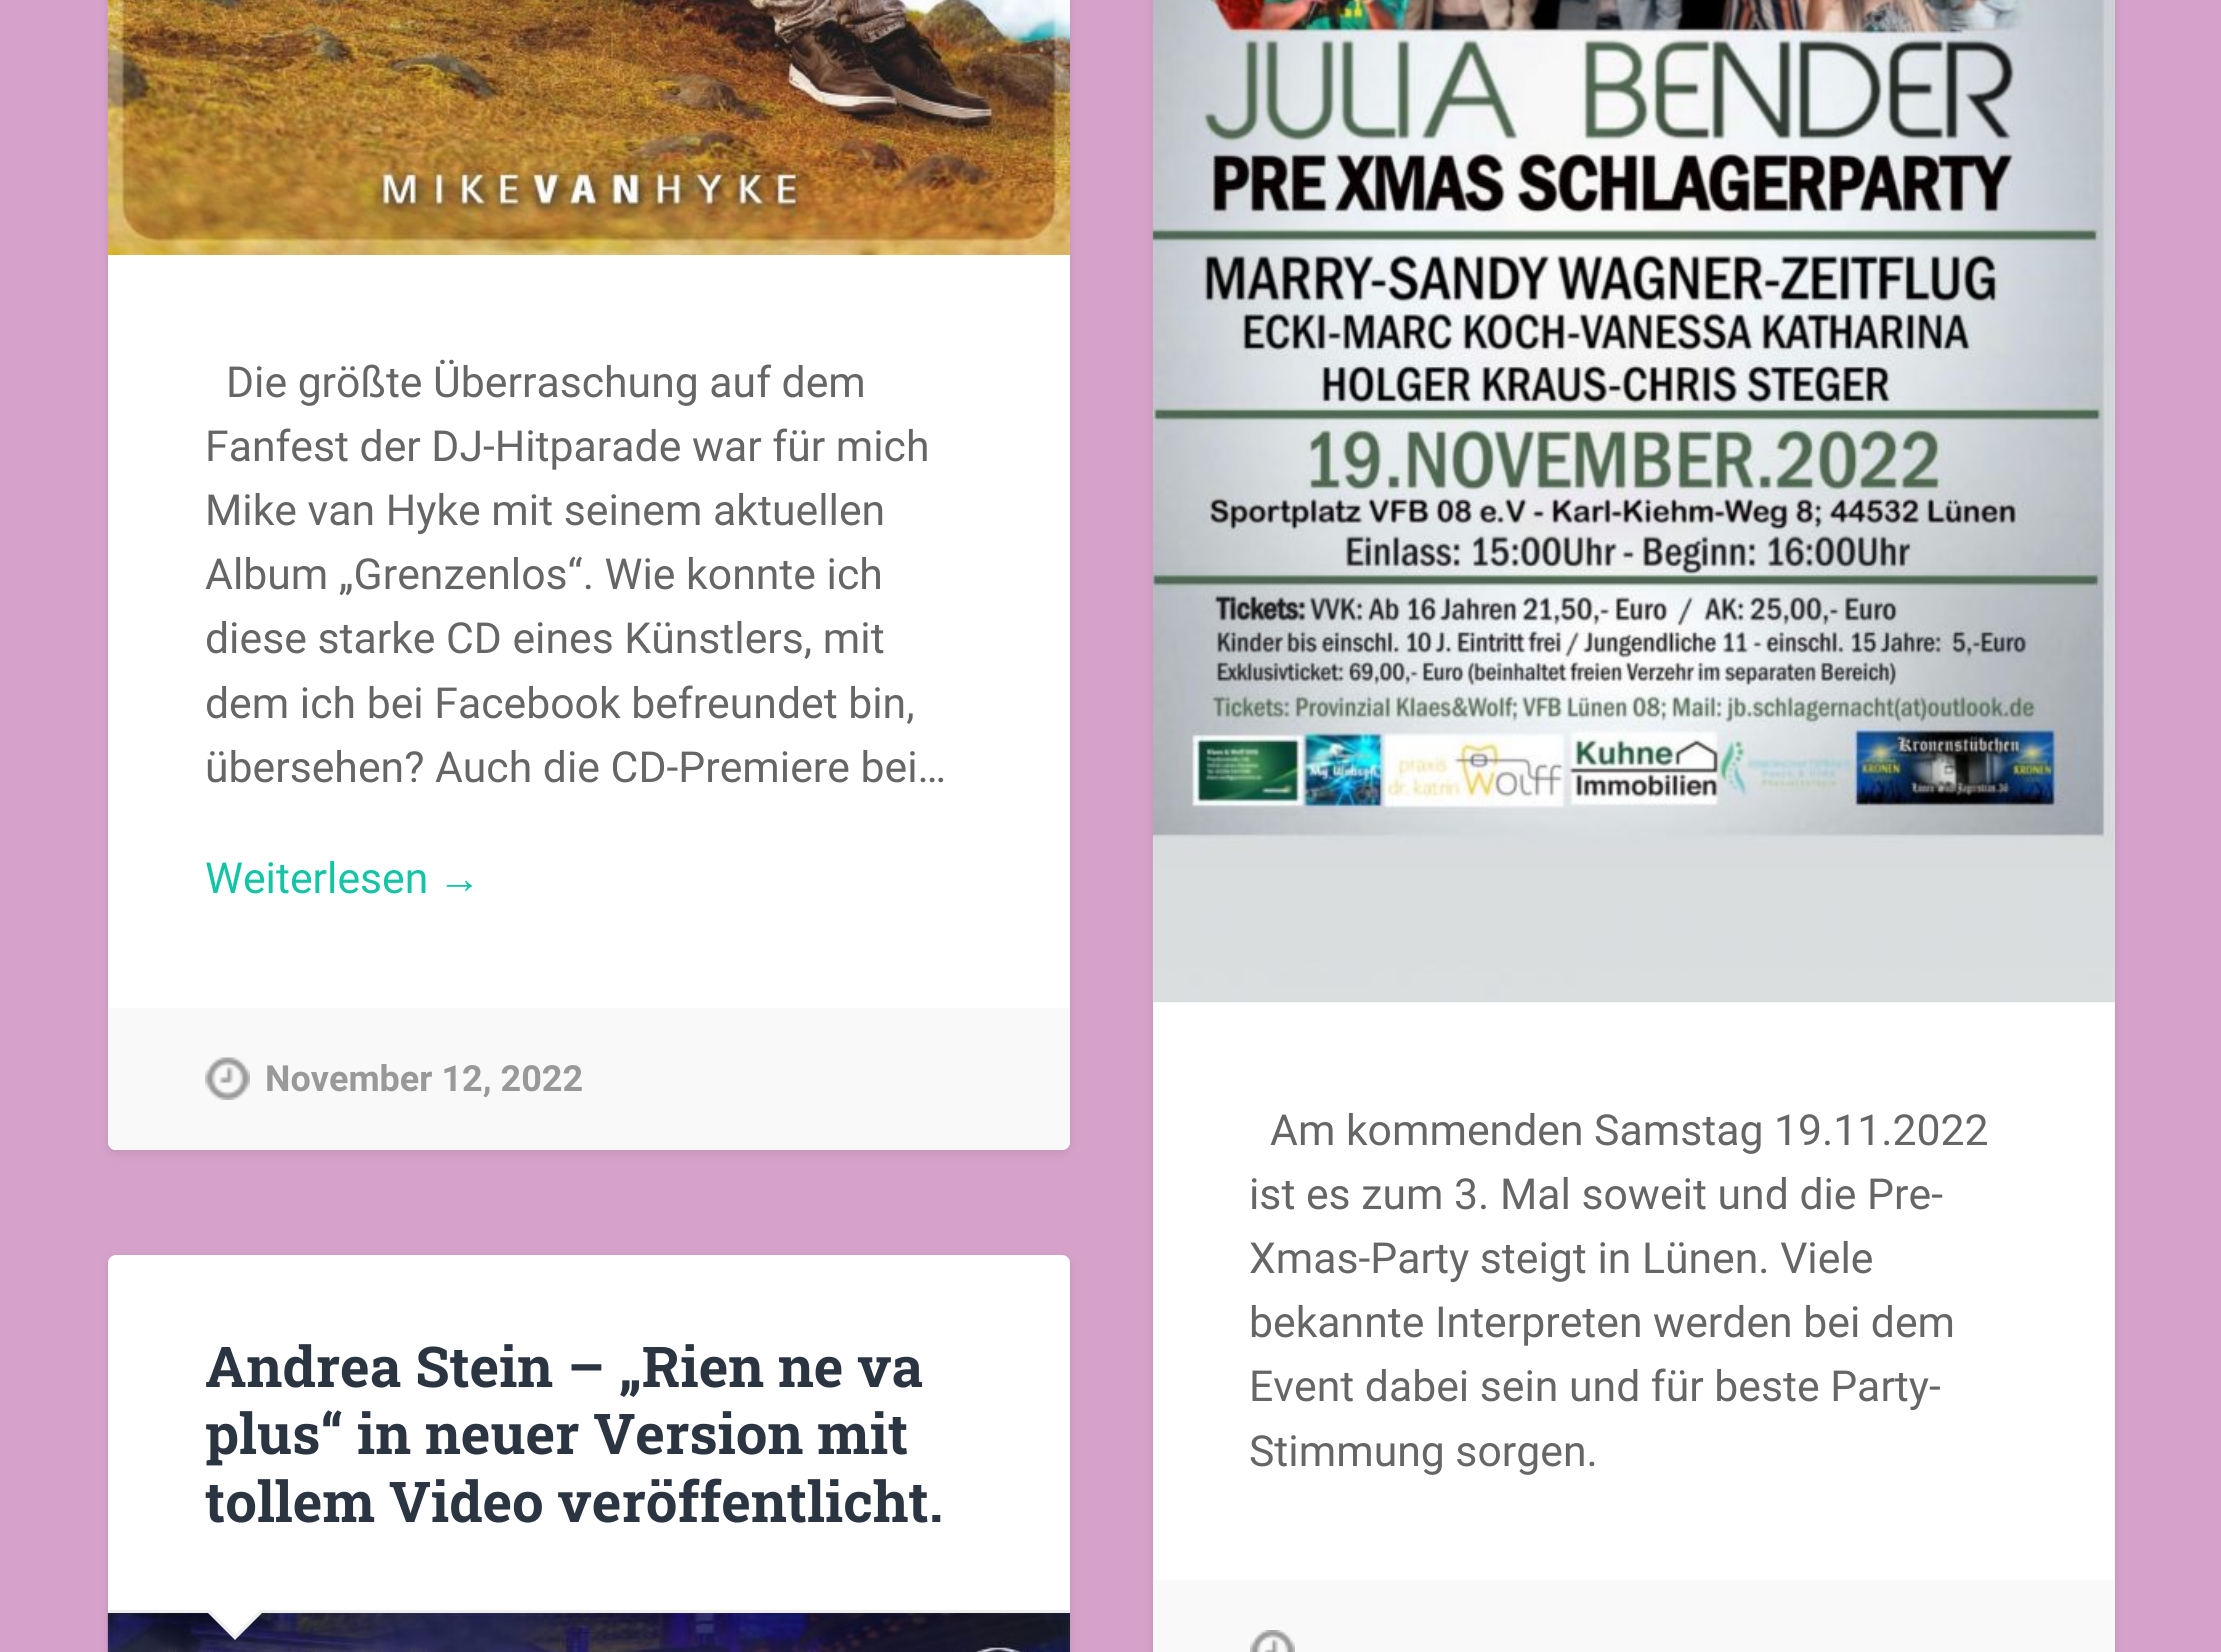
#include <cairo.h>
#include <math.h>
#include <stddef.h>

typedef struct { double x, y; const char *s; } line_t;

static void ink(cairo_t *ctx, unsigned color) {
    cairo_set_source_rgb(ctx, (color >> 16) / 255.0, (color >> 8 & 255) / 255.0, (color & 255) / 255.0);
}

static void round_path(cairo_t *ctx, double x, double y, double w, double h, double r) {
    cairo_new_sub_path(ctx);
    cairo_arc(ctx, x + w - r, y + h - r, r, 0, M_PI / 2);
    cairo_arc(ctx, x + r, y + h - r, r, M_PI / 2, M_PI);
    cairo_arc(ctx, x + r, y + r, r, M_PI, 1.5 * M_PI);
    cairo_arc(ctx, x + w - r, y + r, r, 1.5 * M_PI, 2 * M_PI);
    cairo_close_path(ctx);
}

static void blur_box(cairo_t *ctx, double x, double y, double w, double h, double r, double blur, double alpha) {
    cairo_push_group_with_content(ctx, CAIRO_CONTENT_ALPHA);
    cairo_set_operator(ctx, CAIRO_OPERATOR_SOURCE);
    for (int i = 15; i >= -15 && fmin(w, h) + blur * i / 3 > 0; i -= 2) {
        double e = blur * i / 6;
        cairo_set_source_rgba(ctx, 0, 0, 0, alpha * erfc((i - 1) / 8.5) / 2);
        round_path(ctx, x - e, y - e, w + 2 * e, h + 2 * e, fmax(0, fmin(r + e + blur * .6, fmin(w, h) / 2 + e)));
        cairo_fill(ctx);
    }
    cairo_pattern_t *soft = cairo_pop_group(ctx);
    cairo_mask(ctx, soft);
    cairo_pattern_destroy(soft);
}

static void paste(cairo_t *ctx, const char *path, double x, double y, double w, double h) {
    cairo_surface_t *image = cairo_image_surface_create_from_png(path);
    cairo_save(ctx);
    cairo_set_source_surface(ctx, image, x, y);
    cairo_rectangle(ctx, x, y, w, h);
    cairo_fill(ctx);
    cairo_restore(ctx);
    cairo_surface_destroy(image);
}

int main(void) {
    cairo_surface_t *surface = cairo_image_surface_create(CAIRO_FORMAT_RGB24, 2221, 1652);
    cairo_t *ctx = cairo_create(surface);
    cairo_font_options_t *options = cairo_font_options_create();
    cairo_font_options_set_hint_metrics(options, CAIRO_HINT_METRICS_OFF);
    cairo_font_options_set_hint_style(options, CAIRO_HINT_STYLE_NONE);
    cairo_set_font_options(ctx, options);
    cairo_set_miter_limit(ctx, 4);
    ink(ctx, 0xD6A2CB);
    cairo_paint(ctx);
    ink(ctx, 0x000000);
    blur_box(ctx, 108, -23, 962, 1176, 8, 5, 0.1);
    ink(ctx, 0xFFFFFF);
    round_path(ctx, 108, -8, 962, 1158, 8);
    cairo_fill(ctx);
    paste(ctx, "media/1.png", 107, 0, 963, 255);
    cairo_select_font_face(ctx, "Roboto", CAIRO_FONT_SLANT_NORMAL, CAIRO_FONT_WEIGHT_NORMAL);
    cairo_set_font_size(ctx, 42.75);
    ink(ctx, 0x666666);
    {
        static const line_t items[] = {
            {226, 397, "Die größte Überraschung auf dem"},
            {205, 461, "Fanfest der DJ-Hitparade war für mich"},
            {205, 525, "Mike van Hyke mit seinem aktuellen"},
            {205, 589, "Album „Grenzenlos“. Wie konnte ich"},
            {205, 653, "diese starke CD eines Künstlers, mit"},
            {205, 718, "dem ich bei Facebook befreundet bin,"},
            {205, 782, "übersehen? Auch die CD-Premiere bei…"},
        };
        for (size_t i = 0; i < sizeof items / sizeof *items; i++) {
            cairo_move_to(ctx, items[i].x, items[i].y);
            cairo_show_text(ctx, items[i].s);
        }
    }
    ink(ctx, 0x13C4A5);
    cairo_move_to(ctx, 205, 893);
    cairo_show_text(ctx, "Weiterlesen");
    cairo_select_font_face(ctx, "Liberation Sans", CAIRO_FONT_SLANT_NORMAL, CAIRO_FONT_WEIGHT_NORMAL);
    cairo_move_to(ctx, 438, 893);
    cairo_show_text(ctx, "→");
    ink(ctx, 0xF9F9F9);
    cairo_new_path(ctx);
    cairo_move_to(ctx, 108, 1008);
    cairo_line_to(ctx, 1070, 1008);
    cairo_line_to(ctx, 1070, 1142);
    cairo_curve_to(ctx, 1070, 1146.5, 1066.5, 1150, 1062, 1150);
    cairo_line_to(ctx, 116, 1150);
    cairo_curve_to(ctx, 111.5, 1150, 108, 1146.5, 108, 1142);
    cairo_close_path(ctx);
    cairo_fill(ctx);
    paste(ctx, "media/2.png", 205, 1057, 45, 43);
    cairo_select_font_face(ctx, "Roboto", CAIRO_FONT_SLANT_NORMAL, CAIRO_FONT_WEIGHT_BOLD);
    cairo_set_font_size(ctx, 36);
    ink(ctx, 0x999999);
    cairo_move_to(ctx, 265, 1091);
    cairo_show_text(ctx, "November 12, 2022");
    ink(ctx, 0x000000);
    blur_box(ctx, 108, 1258, 962, 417, 8, 5, 0.1);
    ink(ctx, 0xFFFFFF);
    round_path(ctx, 108, 1255, 962, 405, 8);
    cairo_fill(ctx);
    paste(ctx, "media/3.png", 107, 1612, 963, 40);
    ink(ctx, 0xEEEEEE);
    cairo_rectangle(ctx, 108, 1610, 962, 3);
    cairo_fill(ctx);
    cairo_select_font_face(ctx, "Roboto Slab", CAIRO_FONT_SLANT_NORMAL, CAIRO_FONT_WEIGHT_BOLD);
    cairo_set_font_size(ctx, 56.25);
    ink(ctx, 0x2B3542);
    {
        static const line_t items[] = {
            {205, 1387, "Andrea Stein – „Rien ne va"},
            {205, 1454, "plus“ in neuer Version mit"},
            {205, 1522, "tollem Video veröffentlicht."},
        };
        for (size_t i = 0; i < sizeof items / sizeof *items; i++) {
            cairo_move_to(ctx, items[i].x, items[i].y);
            cairo_show_text(ctx, items[i].s);
        }
    }
    ink(ctx, 0xEEEEEE);
    cairo_new_path(ctx);
    cairo_move_to(ctx, 205, 1610);
    cairo_line_to(ctx, 265, 1610);
    cairo_line_to(ctx, 235, 1640);
    cairo_close_path(ctx);
    cairo_fill(ctx);
    ink(ctx, 0xFFFFFF);
    cairo_new_path(ctx);
    cairo_move_to(ctx, 208, 1608);
    cairo_line_to(ctx, 262, 1608);
    cairo_line_to(ctx, 235, 1635);
    cairo_close_path(ctx);
    cairo_fill(ctx);
    ink(ctx, 0x000000);
    blur_box(ctx, 1153, -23, 962, 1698, 8, 5, 0.1);
    ink(ctx, 0xFFFFFF);
    cairo_rectangle(ctx, 1153, 1002, 962, 578);
    cairo_fill(ctx);
    paste(ctx, "media/4.png", 1152, 0, 963, 1003);
    cairo_select_font_face(ctx, "Roboto", CAIRO_FONT_SLANT_NORMAL, CAIRO_FONT_WEIGHT_NORMAL);
    cairo_set_font_size(ctx, 42.75);
    ink(ctx, 0x666666);
    {
        static const line_t items[] = {
            {1270, 1145, "Am kommenden Samstag 19.11.2022"},
            {1249, 1209, "ist es zum 3. Mal soweit und die Pre-"},
            {1249, 1273, "Xmas-Party steigt in Lünen. Viele"},
            {1249, 1337, "bekannte Interpreten werden bei dem"},
            {1249, 1401, "Event dabei sein und für beste Party-"},
            {1249, 1466, "Stimmung sorgen."},
        };
        for (size_t i = 0; i < sizeof items / sizeof *items; i++) {
            cairo_move_to(ctx, items[i].x, items[i].y);
            cairo_show_text(ctx, items[i].s);
        }
    }
    ink(ctx, 0xF9F9F9);
    cairo_rectangle(ctx, 1153, 1580, 962, 72);
    cairo_fill(ctx);
    paste(ctx, "media/5.png", 1250, 1630, 45, 22);
    cairo_surface_write_to_png(surface, "image.png");
    cairo_font_options_destroy(options);
    cairo_destroy(ctx);
    cairo_surface_destroy(surface);
    return 0;
}
